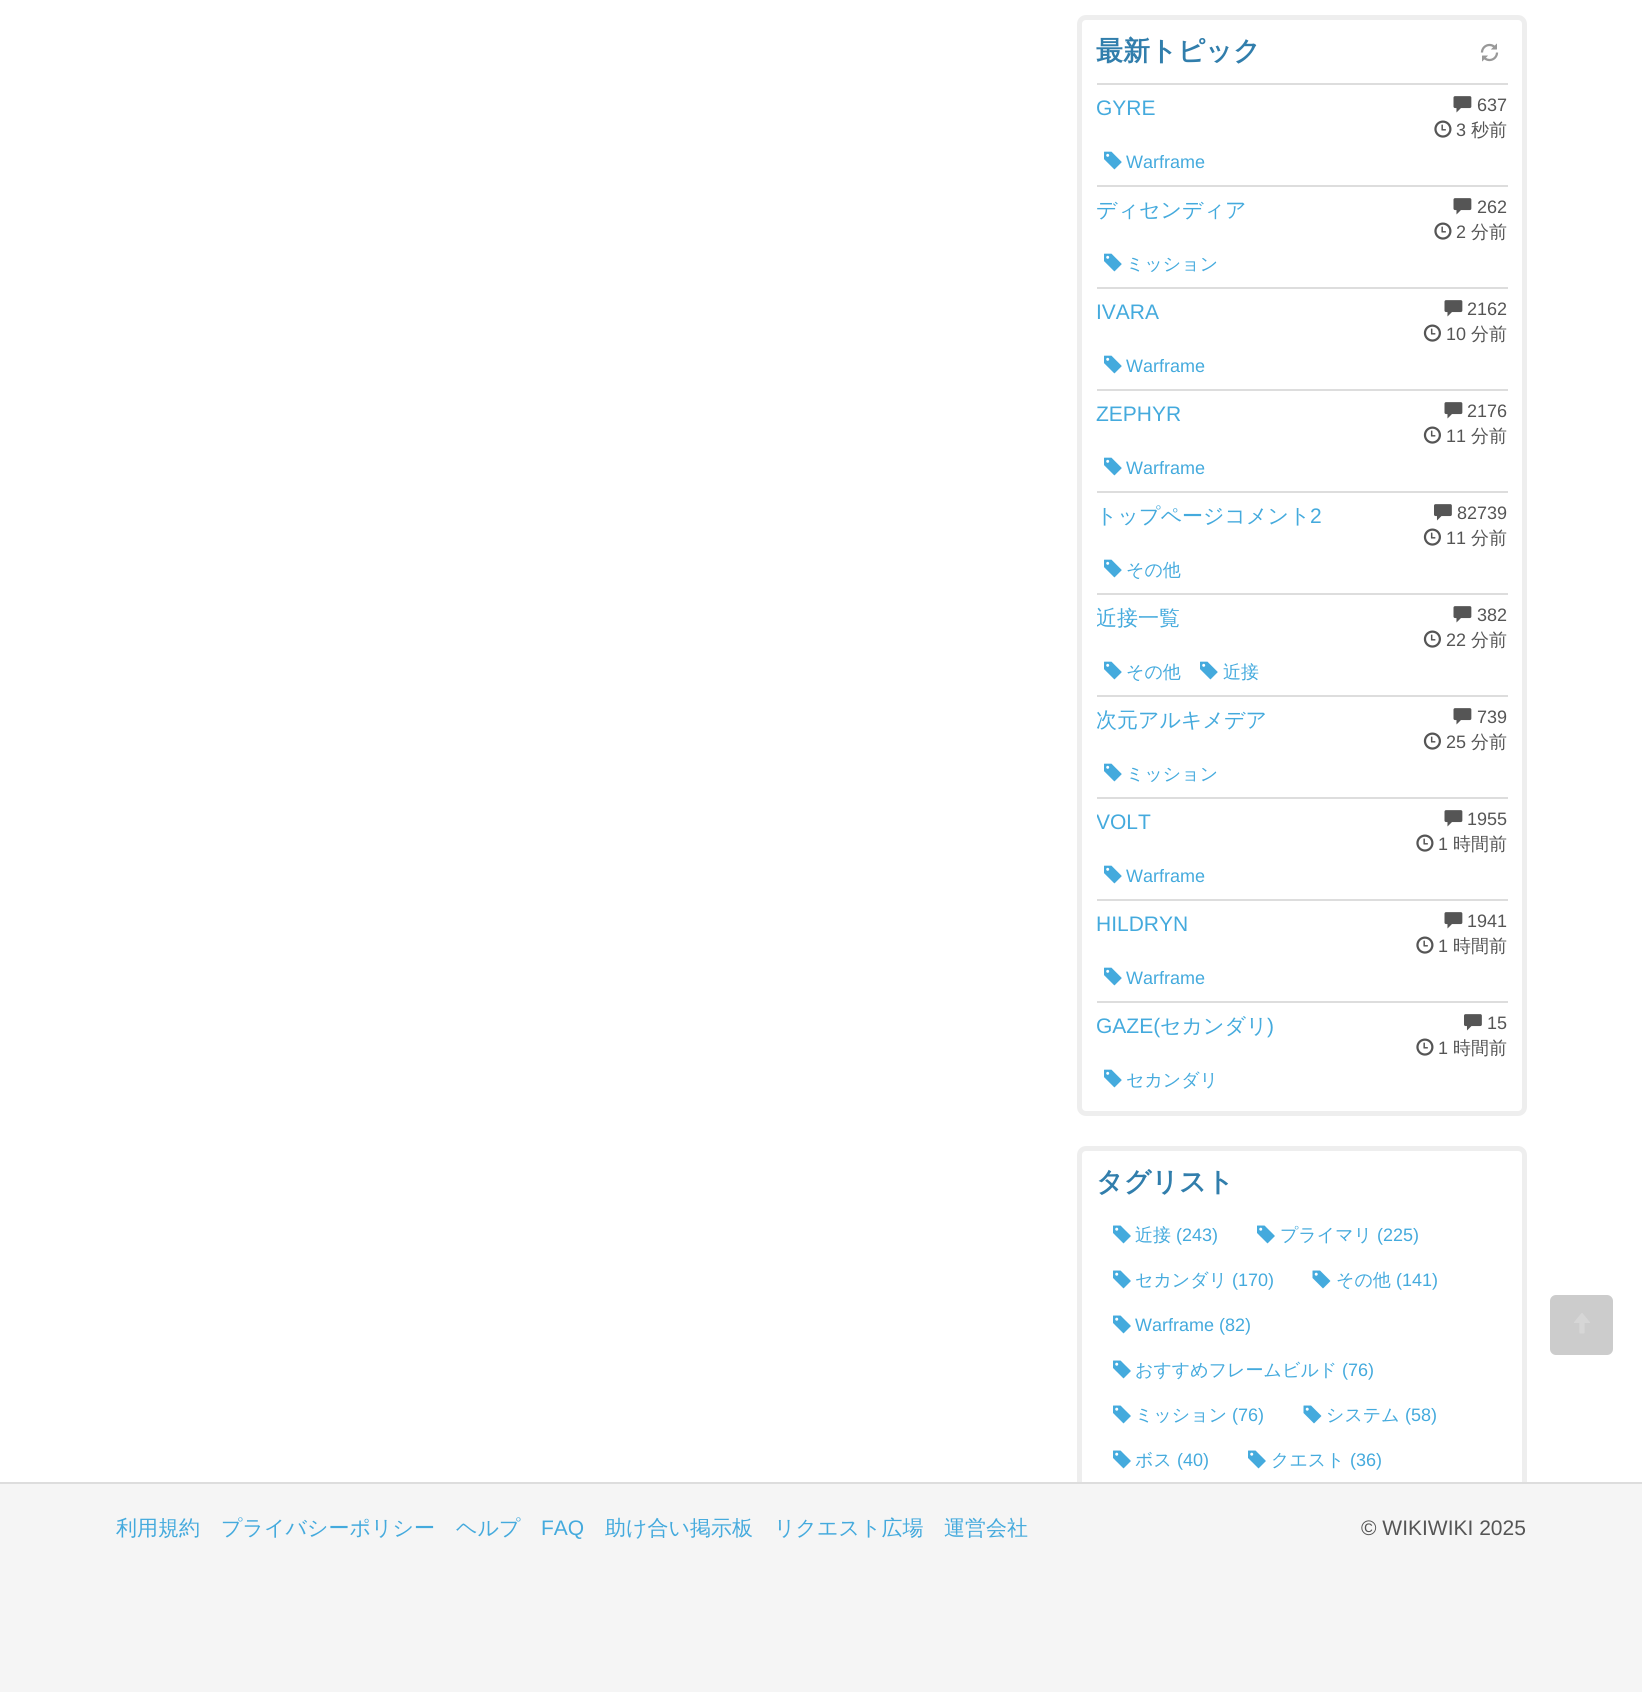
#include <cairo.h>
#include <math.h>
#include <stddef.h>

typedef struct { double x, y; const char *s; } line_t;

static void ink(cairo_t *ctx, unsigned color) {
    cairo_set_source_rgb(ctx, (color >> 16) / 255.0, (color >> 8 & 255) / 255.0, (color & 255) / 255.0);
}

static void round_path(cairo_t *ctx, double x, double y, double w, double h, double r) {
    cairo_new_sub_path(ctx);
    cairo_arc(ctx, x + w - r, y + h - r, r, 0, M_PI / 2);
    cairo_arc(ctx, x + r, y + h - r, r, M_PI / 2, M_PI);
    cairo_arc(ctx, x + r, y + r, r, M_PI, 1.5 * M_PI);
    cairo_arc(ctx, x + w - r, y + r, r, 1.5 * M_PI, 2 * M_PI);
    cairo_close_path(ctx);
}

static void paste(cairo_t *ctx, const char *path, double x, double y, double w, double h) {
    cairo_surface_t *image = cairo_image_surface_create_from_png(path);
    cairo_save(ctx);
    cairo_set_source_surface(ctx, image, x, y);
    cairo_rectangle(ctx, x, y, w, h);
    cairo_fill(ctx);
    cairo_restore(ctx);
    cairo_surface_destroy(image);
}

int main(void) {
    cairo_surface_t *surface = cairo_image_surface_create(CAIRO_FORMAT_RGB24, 1642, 1692);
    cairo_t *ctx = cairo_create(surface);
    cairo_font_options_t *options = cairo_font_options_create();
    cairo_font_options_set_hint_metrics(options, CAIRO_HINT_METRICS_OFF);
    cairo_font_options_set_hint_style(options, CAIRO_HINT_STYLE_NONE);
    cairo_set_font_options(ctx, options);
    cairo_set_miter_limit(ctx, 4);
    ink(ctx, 0xFFFFFF);
    cairo_paint(ctx);
    round_path(ctx, 1079.5, 17.5, 445, 1096, 6.5);
    ink(ctx, 0xEEEEEE);
    cairo_set_line_width(ctx, 5);
    cairo_stroke(ctx);
    cairo_select_font_face(ctx, "WenQuanYi Zen Hei", CAIRO_FONT_SLANT_NORMAL, CAIRO_FONT_WEIGHT_BOLD);
    cairo_set_font_size(ctx, 27);
    ink(ctx, 0x317EAC);
    cairo_move_to(ctx, 1096, 60);
    cairo_show_text(ctx, "最新トピック");
    paste(ctx, "media/1.png", 1480, 43, 19, 19);
    ink(ctx, 0xDDDDDD);
    cairo_rectangle(ctx, 1097, 83, 411, 2);
    cairo_fill(ctx);
    cairo_save(ctx);
    cairo_rectangle(ctx, 1097, 93, 411, 51);
    cairo_clip(ctx);
    cairo_select_font_face(ctx, "Liberation Sans", CAIRO_FONT_SLANT_NORMAL, CAIRO_FONT_WEIGHT_NORMAL);
    cairo_set_font_size(ctx, 21);
    ink(ctx, 0x44AADD);
    cairo_move_to(ctx, 1096, 115);
    cairo_show_text(ctx, "GYRE");
    cairo_restore(ctx);
    paste(ctx, "media/2.png", 1453, 96, 19, 17);
    cairo_select_font_face(ctx, "Liberation Sans", CAIRO_FONT_SLANT_NORMAL, CAIRO_FONT_WEIGHT_NORMAL);
    cairo_set_font_size(ctx, 18);
    ink(ctx, 0x555555);
    cairo_move_to(ctx, 1477, 111);
    cairo_show_text(ctx, "637");
    paste(ctx, "media/3.png", 1434, 120, 18, 18);
    cairo_move_to(ctx, 1456, 136);
    cairo_show_text(ctx, "3");
    cairo_select_font_face(ctx, "WenQuanYi Zen Hei Medium", CAIRO_FONT_SLANT_NORMAL, CAIRO_FONT_WEIGHT_NORMAL);
    cairo_move_to(ctx, 1471, 136);
    cairo_show_text(ctx, "秒前");
    paste(ctx, "media/4.png", 1104, 151, 18, 19);
    cairo_select_font_face(ctx, "Liberation Sans", CAIRO_FONT_SLANT_NORMAL, CAIRO_FONT_WEIGHT_NORMAL);
    ink(ctx, 0x44AADD);
    cairo_move_to(ctx, 1126, 168);
    cairo_show_text(ctx, "Warframe");
    ink(ctx, 0xDDDDDD);
    cairo_rectangle(ctx, 1097, 185, 411, 2);
    cairo_fill(ctx);
    cairo_select_font_face(ctx, "WenQuanYi Zen Hei Medium", CAIRO_FONT_SLANT_NORMAL, CAIRO_FONT_WEIGHT_NORMAL);
    cairo_set_font_size(ctx, 21);
    ink(ctx, 0x44AADD);
    cairo_move_to(ctx, 1096, 217);
    cairo_show_text(ctx, "ディセンディア");
    paste(ctx, "media/2.png", 1453, 198, 19, 17);
    cairo_select_font_face(ctx, "Liberation Sans", CAIRO_FONT_SLANT_NORMAL, CAIRO_FONT_WEIGHT_NORMAL);
    cairo_set_font_size(ctx, 18);
    ink(ctx, 0x555555);
    cairo_move_to(ctx, 1477, 213);
    cairo_show_text(ctx, "262");
    paste(ctx, "media/3.png", 1434, 222, 18, 18);
    cairo_move_to(ctx, 1456, 238);
    cairo_show_text(ctx, "2");
    cairo_select_font_face(ctx, "WenQuanYi Zen Hei Medium", CAIRO_FONT_SLANT_NORMAL, CAIRO_FONT_WEIGHT_NORMAL);
    cairo_move_to(ctx, 1471, 238);
    cairo_show_text(ctx, "分前");
    paste(ctx, "media/4.png", 1104, 253, 18, 19);
    ink(ctx, 0x44AADD);
    cairo_move_to(ctx, 1126, 270);
    cairo_show_text(ctx, "ミッション");
    ink(ctx, 0xDDDDDD);
    cairo_rectangle(ctx, 1097, 287, 411, 2);
    cairo_fill(ctx);
    cairo_select_font_face(ctx, "Liberation Sans", CAIRO_FONT_SLANT_NORMAL, CAIRO_FONT_WEIGHT_NORMAL);
    cairo_set_font_size(ctx, 21);
    ink(ctx, 0x44AADD);
    cairo_move_to(ctx, 1096, 319);
    cairo_show_text(ctx, "IVARA");
    paste(ctx, "media/2.png", 1444, 300, 19, 17);
    cairo_set_font_size(ctx, 18);
    ink(ctx, 0x555555);
    cairo_move_to(ctx, 1467, 315);
    cairo_show_text(ctx, "2162");
    paste(ctx, "media/5.png", 1423, 324, 18, 18);
    cairo_move_to(ctx, 1446, 340);
    cairo_show_text(ctx, "10");
    cairo_select_font_face(ctx, "WenQuanYi Zen Hei Medium", CAIRO_FONT_SLANT_NORMAL, CAIRO_FONT_WEIGHT_NORMAL);
    cairo_move_to(ctx, 1471, 340);
    cairo_show_text(ctx, "分前");
    paste(ctx, "media/4.png", 1104, 355, 18, 19);
    cairo_select_font_face(ctx, "Liberation Sans", CAIRO_FONT_SLANT_NORMAL, CAIRO_FONT_WEIGHT_NORMAL);
    ink(ctx, 0x44AADD);
    cairo_move_to(ctx, 1126, 372);
    cairo_show_text(ctx, "Warframe");
    ink(ctx, 0xDDDDDD);
    cairo_rectangle(ctx, 1097, 389, 411, 2);
    cairo_fill(ctx);
    cairo_set_font_size(ctx, 21);
    ink(ctx, 0x44AADD);
    cairo_move_to(ctx, 1096, 421);
    cairo_show_text(ctx, "ZEPHYR");
    paste(ctx, "media/2.png", 1444, 402, 19, 17);
    cairo_set_font_size(ctx, 18);
    ink(ctx, 0x555555);
    cairo_move_to(ctx, 1467, 417);
    cairo_show_text(ctx, "2176");
    paste(ctx, "media/5.png", 1423, 426, 18, 18);
    cairo_move_to(ctx, 1446, 442);
    cairo_show_text(ctx, "11");
    cairo_select_font_face(ctx, "WenQuanYi Zen Hei Medium", CAIRO_FONT_SLANT_NORMAL, CAIRO_FONT_WEIGHT_NORMAL);
    cairo_move_to(ctx, 1471, 442);
    cairo_show_text(ctx, "分前");
    paste(ctx, "media/4.png", 1104, 457, 18, 19);
    cairo_select_font_face(ctx, "Liberation Sans", CAIRO_FONT_SLANT_NORMAL, CAIRO_FONT_WEIGHT_NORMAL);
    ink(ctx, 0x44AADD);
    cairo_move_to(ctx, 1126, 474);
    cairo_show_text(ctx, "Warframe");
    ink(ctx, 0xDDDDDD);
    cairo_rectangle(ctx, 1097, 491, 411, 2);
    cairo_fill(ctx);
    cairo_select_font_face(ctx, "WenQuanYi Zen Hei Medium", CAIRO_FONT_SLANT_NORMAL, CAIRO_FONT_WEIGHT_NORMAL);
    cairo_set_font_size(ctx, 21);
    ink(ctx, 0x44AADD);
    cairo_move_to(ctx, 1096, 523);
    cairo_show_text(ctx, "トップページコメント");
    cairo_select_font_face(ctx, "Liberation Sans", CAIRO_FONT_SLANT_NORMAL, CAIRO_FONT_WEIGHT_NORMAL);
    cairo_move_to(ctx, 1310, 523);
    cairo_show_text(ctx, "2");
    paste(ctx, "media/6.png", 1434, 504, 18, 17);
    cairo_set_font_size(ctx, 18);
    ink(ctx, 0x555555);
    cairo_move_to(ctx, 1457, 519);
    cairo_show_text(ctx, "82739");
    paste(ctx, "media/5.png", 1423, 528, 18, 18);
    cairo_move_to(ctx, 1446, 544);
    cairo_show_text(ctx, "11");
    cairo_select_font_face(ctx, "WenQuanYi Zen Hei Medium", CAIRO_FONT_SLANT_NORMAL, CAIRO_FONT_WEIGHT_NORMAL);
    cairo_move_to(ctx, 1471, 544);
    cairo_show_text(ctx, "分前");
    paste(ctx, "media/4.png", 1104, 559, 18, 19);
    ink(ctx, 0x44AADD);
    cairo_move_to(ctx, 1126, 576);
    cairo_show_text(ctx, "その他");
    ink(ctx, 0xDDDDDD);
    cairo_rectangle(ctx, 1097, 593, 411, 2);
    cairo_fill(ctx);
    cairo_save(ctx);
    cairo_rectangle(ctx, 1097, 603, 411, 51);
    cairo_clip(ctx);
    cairo_set_font_size(ctx, 21);
    ink(ctx, 0x44AADD);
    cairo_move_to(ctx, 1096, 625);
    cairo_show_text(ctx, "近接一覧");
    cairo_restore(ctx);
    paste(ctx, "media/2.png", 1453, 606, 19, 17);
    cairo_select_font_face(ctx, "Liberation Sans", CAIRO_FONT_SLANT_NORMAL, CAIRO_FONT_WEIGHT_NORMAL);
    ink(ctx, 0x555555);
    cairo_move_to(ctx, 1477, 621);
    cairo_show_text(ctx, "382");
    paste(ctx, "media/5.png", 1423, 630, 18, 18);
    cairo_move_to(ctx, 1446, 646);
    cairo_show_text(ctx, "22");
    cairo_select_font_face(ctx, "WenQuanYi Zen Hei Medium", CAIRO_FONT_SLANT_NORMAL, CAIRO_FONT_WEIGHT_NORMAL);
    cairo_move_to(ctx, 1471, 646);
    cairo_show_text(ctx, "分前");
    paste(ctx, "media/4.png", 1104, 661, 18, 19);
    ink(ctx, 0x44AADD);
    cairo_move_to(ctx, 1126, 678);
    cairo_show_text(ctx, "その他");
    paste(ctx, "media/4.png", 1200, 661, 18, 19);
    cairo_move_to(ctx, 1223, 678);
    cairo_show_text(ctx, "近接");
    ink(ctx, 0xDDDDDD);
    cairo_rectangle(ctx, 1097, 695, 411, 2);
    cairo_fill(ctx);
    cairo_set_font_size(ctx, 21);
    ink(ctx, 0x44AADD);
    cairo_move_to(ctx, 1096, 727);
    cairo_show_text(ctx, "次元アルキメデア");
    paste(ctx, "media/2.png", 1453, 708, 19, 17);
    cairo_select_font_face(ctx, "Liberation Sans", CAIRO_FONT_SLANT_NORMAL, CAIRO_FONT_WEIGHT_NORMAL);
    cairo_set_font_size(ctx, 18);
    ink(ctx, 0x555555);
    cairo_move_to(ctx, 1477, 723);
    cairo_show_text(ctx, "739");
    paste(ctx, "media/5.png", 1423, 732, 18, 18);
    cairo_move_to(ctx, 1446, 748);
    cairo_show_text(ctx, "25");
    cairo_select_font_face(ctx, "WenQuanYi Zen Hei Medium", CAIRO_FONT_SLANT_NORMAL, CAIRO_FONT_WEIGHT_NORMAL);
    cairo_move_to(ctx, 1471, 748);
    cairo_show_text(ctx, "分前");
    paste(ctx, "media/4.png", 1104, 763, 18, 19);
    ink(ctx, 0x44AADD);
    cairo_move_to(ctx, 1126, 780);
    cairo_show_text(ctx, "ミッション");
    ink(ctx, 0xDDDDDD);
    cairo_rectangle(ctx, 1097, 797, 411, 2);
    cairo_fill(ctx);
    cairo_save(ctx);
    cairo_rectangle(ctx, 1097, 807, 411, 51);
    cairo_clip(ctx);
    cairo_select_font_face(ctx, "Liberation Sans", CAIRO_FONT_SLANT_NORMAL, CAIRO_FONT_WEIGHT_NORMAL);
    cairo_set_font_size(ctx, 21);
    ink(ctx, 0x44AADD);
    cairo_move_to(ctx, 1096, 829);
    cairo_show_text(ctx, "VOLT");
    cairo_restore(ctx);
    paste(ctx, "media/2.png", 1444, 810, 19, 17);
    cairo_select_font_face(ctx, "Liberation Sans", CAIRO_FONT_SLANT_NORMAL, CAIRO_FONT_WEIGHT_NORMAL);
    ink(ctx, 0x555555);
    cairo_move_to(ctx, 1467, 825);
    cairo_show_text(ctx, "1955");
    paste(ctx, "media/3.png", 1416, 834, 18, 18);
    cairo_move_to(ctx, 1438, 850);
    cairo_show_text(ctx, "1");
    cairo_select_font_face(ctx, "WenQuanYi Zen Hei Medium", CAIRO_FONT_SLANT_NORMAL, CAIRO_FONT_WEIGHT_NORMAL);
    cairo_move_to(ctx, 1453, 850);
    cairo_show_text(ctx, "時間前");
    paste(ctx, "media/4.png", 1104, 865, 18, 19);
    cairo_select_font_face(ctx, "Liberation Sans", CAIRO_FONT_SLANT_NORMAL, CAIRO_FONT_WEIGHT_NORMAL);
    ink(ctx, 0x44AADD);
    cairo_move_to(ctx, 1126, 882);
    cairo_show_text(ctx, "Warframe");
    ink(ctx, 0xDDDDDD);
    cairo_rectangle(ctx, 1097, 899, 411, 2);
    cairo_fill(ctx);
    cairo_set_font_size(ctx, 21);
    ink(ctx, 0x44AADD);
    cairo_move_to(ctx, 1096, 931);
    cairo_show_text(ctx, "HILDRYN");
    paste(ctx, "media/2.png", 1444, 912, 19, 17);
    cairo_set_font_size(ctx, 18);
    ink(ctx, 0x555555);
    cairo_move_to(ctx, 1467, 927);
    cairo_show_text(ctx, "1941");
    paste(ctx, "media/3.png", 1416, 936, 18, 18);
    cairo_move_to(ctx, 1438, 952);
    cairo_show_text(ctx, "1");
    cairo_select_font_face(ctx, "WenQuanYi Zen Hei Medium", CAIRO_FONT_SLANT_NORMAL, CAIRO_FONT_WEIGHT_NORMAL);
    cairo_move_to(ctx, 1453, 952);
    cairo_show_text(ctx, "時間前");
    paste(ctx, "media/4.png", 1104, 967, 18, 19);
    cairo_select_font_face(ctx, "Liberation Sans", CAIRO_FONT_SLANT_NORMAL, CAIRO_FONT_WEIGHT_NORMAL);
    ink(ctx, 0x44AADD);
    cairo_move_to(ctx, 1126, 984);
    cairo_show_text(ctx, "Warframe");
    ink(ctx, 0xDDDDDD);
    cairo_rectangle(ctx, 1097, 1001, 411, 2);
    cairo_fill(ctx);
    cairo_save(ctx);
    cairo_rectangle(ctx, 1097, 1011, 411, 51);
    cairo_clip(ctx);
    cairo_set_font_size(ctx, 21);
    ink(ctx, 0x44AADD);
    cairo_move_to(ctx, 1096, 1033);
    cairo_show_text(ctx, "GAZE(");
    cairo_restore(ctx);
    cairo_select_font_face(ctx, "WenQuanYi Zen Hei Medium", CAIRO_FONT_SLANT_NORMAL, CAIRO_FONT_WEIGHT_NORMAL);
    cairo_set_font_size(ctx, 21);
    ink(ctx, 0x44AADD);
    cairo_move_to(ctx, 1160, 1033);
    cairo_show_text(ctx, "セカンダリ");
    cairo_select_font_face(ctx, "Liberation Sans", CAIRO_FONT_SLANT_NORMAL, CAIRO_FONT_WEIGHT_NORMAL);
    cairo_move_to(ctx, 1267, 1033);
    cairo_show_text(ctx, ")");
    paste(ctx, "media/6.png", 1464, 1014, 18, 17);
    cairo_set_font_size(ctx, 18);
    ink(ctx, 0x555555);
    cairo_move_to(ctx, 1487, 1029);
    cairo_show_text(ctx, "15");
    paste(ctx, "media/3.png", 1416, 1038, 18, 18);
    cairo_move_to(ctx, 1438, 1054);
    cairo_show_text(ctx, "1");
    cairo_select_font_face(ctx, "WenQuanYi Zen Hei Medium", CAIRO_FONT_SLANT_NORMAL, CAIRO_FONT_WEIGHT_NORMAL);
    cairo_move_to(ctx, 1453, 1054);
    cairo_show_text(ctx, "時間前");
    paste(ctx, "media/4.png", 1104, 1069, 18, 19);
    ink(ctx, 0x44AADD);
    cairo_move_to(ctx, 1126, 1086);
    cairo_show_text(ctx, "セカンダリ");
    round_path(ctx, 1079.5, 1148.5, 445, 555, 6.5);
    ink(ctx, 0xEEEEEE);
    cairo_stroke(ctx);
    cairo_select_font_face(ctx, "WenQuanYi Zen Hei", CAIRO_FONT_SLANT_NORMAL, CAIRO_FONT_WEIGHT_BOLD);
    cairo_set_font_size(ctx, 27);
    ink(ctx, 0x317EAC);
    cairo_move_to(ctx, 1096, 1191);
    cairo_show_text(ctx, "タグリスト");
    paste(ctx, "media/7.png", 1113, 1225, 18, 19);
    cairo_select_font_face(ctx, "WenQuanYi Zen Hei Medium", CAIRO_FONT_SLANT_NORMAL, CAIRO_FONT_WEIGHT_NORMAL);
    cairo_set_font_size(ctx, 18);
    ink(ctx, 0x44AADD);
    cairo_move_to(ctx, 1135, 1241);
    cairo_show_text(ctx, "近接");
    cairo_select_font_face(ctx, "Liberation Sans", CAIRO_FONT_SLANT_NORMAL, CAIRO_FONT_WEIGHT_NORMAL);
    cairo_move_to(ctx, 1176, 1241);
    cairo_show_text(ctx, "(243)");
    paste(ctx, "media/7.png", 1257, 1225, 18, 19);
    cairo_select_font_face(ctx, "WenQuanYi Zen Hei Medium", CAIRO_FONT_SLANT_NORMAL, CAIRO_FONT_WEIGHT_NORMAL);
    cairo_move_to(ctx, 1280, 1241);
    cairo_show_text(ctx, "プライマリ");
    cairo_select_font_face(ctx, "Liberation Sans", CAIRO_FONT_SLANT_NORMAL, CAIRO_FONT_WEIGHT_NORMAL);
    cairo_move_to(ctx, 1377, 1241);
    cairo_show_text(ctx, "(225)");
    paste(ctx, "media/7.png", 1113, 1270, 18, 19);
    cairo_select_font_face(ctx, "WenQuanYi Zen Hei Medium", CAIRO_FONT_SLANT_NORMAL, CAIRO_FONT_WEIGHT_NORMAL);
    cairo_move_to(ctx, 1135, 1286);
    cairo_show_text(ctx, "セカンダリ");
    cairo_select_font_face(ctx, "Liberation Sans", CAIRO_FONT_SLANT_NORMAL, CAIRO_FONT_WEIGHT_NORMAL);
    cairo_move_to(ctx, 1232, 1286);
    cairo_show_text(ctx, "(170)");
    paste(ctx, "media/8.png", 1312, 1270, 19, 19);
    cairo_select_font_face(ctx, "WenQuanYi Zen Hei Medium", CAIRO_FONT_SLANT_NORMAL, CAIRO_FONT_WEIGHT_NORMAL);
    cairo_move_to(ctx, 1336, 1286);
    cairo_show_text(ctx, "その他");
    cairo_select_font_face(ctx, "Liberation Sans", CAIRO_FONT_SLANT_NORMAL, CAIRO_FONT_WEIGHT_NORMAL);
    cairo_move_to(ctx, 1396, 1286);
    cairo_show_text(ctx, "(141)");
    paste(ctx, "media/7.png", 1113, 1315, 18, 19);
    cairo_move_to(ctx, 1135, 1331);
    cairo_show_text(ctx, "Warframe (82)");
    paste(ctx, "media/7.png", 1113, 1360, 18, 19);
    cairo_select_font_face(ctx, "WenQuanYi Zen Hei Medium", CAIRO_FONT_SLANT_NORMAL, CAIRO_FONT_WEIGHT_NORMAL);
    cairo_move_to(ctx, 1135, 1376);
    cairo_show_text(ctx, "おすすめフレームビルド");
    cairo_select_font_face(ctx, "Liberation Sans", CAIRO_FONT_SLANT_NORMAL, CAIRO_FONT_WEIGHT_NORMAL);
    cairo_move_to(ctx, 1342, 1376);
    cairo_show_text(ctx, "(76)");
    paste(ctx, "media/7.png", 1113, 1405, 18, 19);
    cairo_select_font_face(ctx, "WenQuanYi Zen Hei Medium", CAIRO_FONT_SLANT_NORMAL, CAIRO_FONT_WEIGHT_NORMAL);
    cairo_move_to(ctx, 1135, 1421);
    cairo_show_text(ctx, "ミッション");
    cairo_select_font_face(ctx, "Liberation Sans", CAIRO_FONT_SLANT_NORMAL, CAIRO_FONT_WEIGHT_NORMAL);
    cairo_move_to(ctx, 1232, 1421);
    cairo_show_text(ctx, "(76)");
    paste(ctx, "media/8.png", 1303, 1405, 19, 19);
    cairo_select_font_face(ctx, "WenQuanYi Zen Hei Medium", CAIRO_FONT_SLANT_NORMAL, CAIRO_FONT_WEIGHT_NORMAL);
    cairo_move_to(ctx, 1326, 1421);
    cairo_show_text(ctx, "システム");
    cairo_select_font_face(ctx, "Liberation Sans", CAIRO_FONT_SLANT_NORMAL, CAIRO_FONT_WEIGHT_NORMAL);
    cairo_move_to(ctx, 1405, 1421);
    cairo_show_text(ctx, "(58)");
    paste(ctx, "media/7.png", 1113, 1450, 18, 19);
    cairo_select_font_face(ctx, "WenQuanYi Zen Hei Medium", CAIRO_FONT_SLANT_NORMAL, CAIRO_FONT_WEIGHT_NORMAL);
    cairo_move_to(ctx, 1135, 1466);
    cairo_show_text(ctx, "ボス");
    cairo_select_font_face(ctx, "Liberation Sans", CAIRO_FONT_SLANT_NORMAL, CAIRO_FONT_WEIGHT_NORMAL);
    cairo_move_to(ctx, 1177, 1466);
    cairo_show_text(ctx, "(40)");
    paste(ctx, "media/7.png", 1248, 1450, 18, 19);
    cairo_select_font_face(ctx, "WenQuanYi Zen Hei Medium", CAIRO_FONT_SLANT_NORMAL, CAIRO_FONT_WEIGHT_NORMAL);
    cairo_move_to(ctx, 1271, 1466);
    cairo_show_text(ctx, "クエスト");
    cairo_select_font_face(ctx, "Liberation Sans", CAIRO_FONT_SLANT_NORMAL, CAIRO_FONT_WEIGHT_NORMAL);
    cairo_move_to(ctx, 1350, 1466);
    cairo_show_text(ctx, "(36)");
    ink(ctx, 0xCCCCCC);
    round_path(ctx, 1550, 1295, 63, 60, 6);
    cairo_fill(ctx);
    paste(ctx, "media/9.png", 1574, 1313, 16, 21);
    ink(ctx, 0xF5F5F5);
    cairo_rectangle(ctx, 0, 1484, 1642, 208);
    cairo_fill(ctx);
    ink(ctx, 0xDDDDDD);
    cairo_rectangle(ctx, 0, 1482, 1642, 2);
    cairo_fill(ctx);
    cairo_select_font_face(ctx, "WenQuanYi Zen Hei Medium", CAIRO_FONT_SLANT_NORMAL, CAIRO_FONT_WEIGHT_NORMAL);
    cairo_set_font_size(ctx, 21);
    ink(ctx, 0x44AADD);
    {
        static const line_t items[] = {
            {116, 1535, "利用規約"},
            {221, 1535, "プライバシーポリシー"},
            {456, 1535, "ヘルプ"},
        };
        for (size_t i = 0; i < sizeof items / sizeof *items; i++) {
            cairo_move_to(ctx, items[i].x, items[i].y);
            cairo_show_text(ctx, items[i].s);
        }
    }
    cairo_select_font_face(ctx, "Liberation Sans", CAIRO_FONT_SLANT_NORMAL, CAIRO_FONT_WEIGHT_NORMAL);
    cairo_move_to(ctx, 541, 1535);
    cairo_show_text(ctx, "FAQ");
    cairo_select_font_face(ctx, "WenQuanYi Zen Hei Medium", CAIRO_FONT_SLANT_NORMAL, CAIRO_FONT_WEIGHT_NORMAL);
    {
        static const line_t items[] = {
            {605, 1535, "助け合い掲示板"},
            {774, 1535, "リクエスト広場"},
            {944, 1535, "運営会社"},
        };
        for (size_t i = 0; i < sizeof items / sizeof *items; i++) {
            cairo_move_to(ctx, items[i].x, items[i].y);
            cairo_show_text(ctx, items[i].s);
        }
    }
    cairo_select_font_face(ctx, "Liberation Sans", CAIRO_FONT_SLANT_NORMAL, CAIRO_FONT_WEIGHT_NORMAL);
    ink(ctx, 0x555555);
    cairo_move_to(ctx, 1361, 1535);
    cairo_show_text(ctx, "© WIKIWIKI 2025");
    cairo_surface_write_to_png(surface, "image.png");
    cairo_font_options_destroy(options);
    cairo_destroy(ctx);
    cairo_surface_destroy(surface);
    return 0;
}
